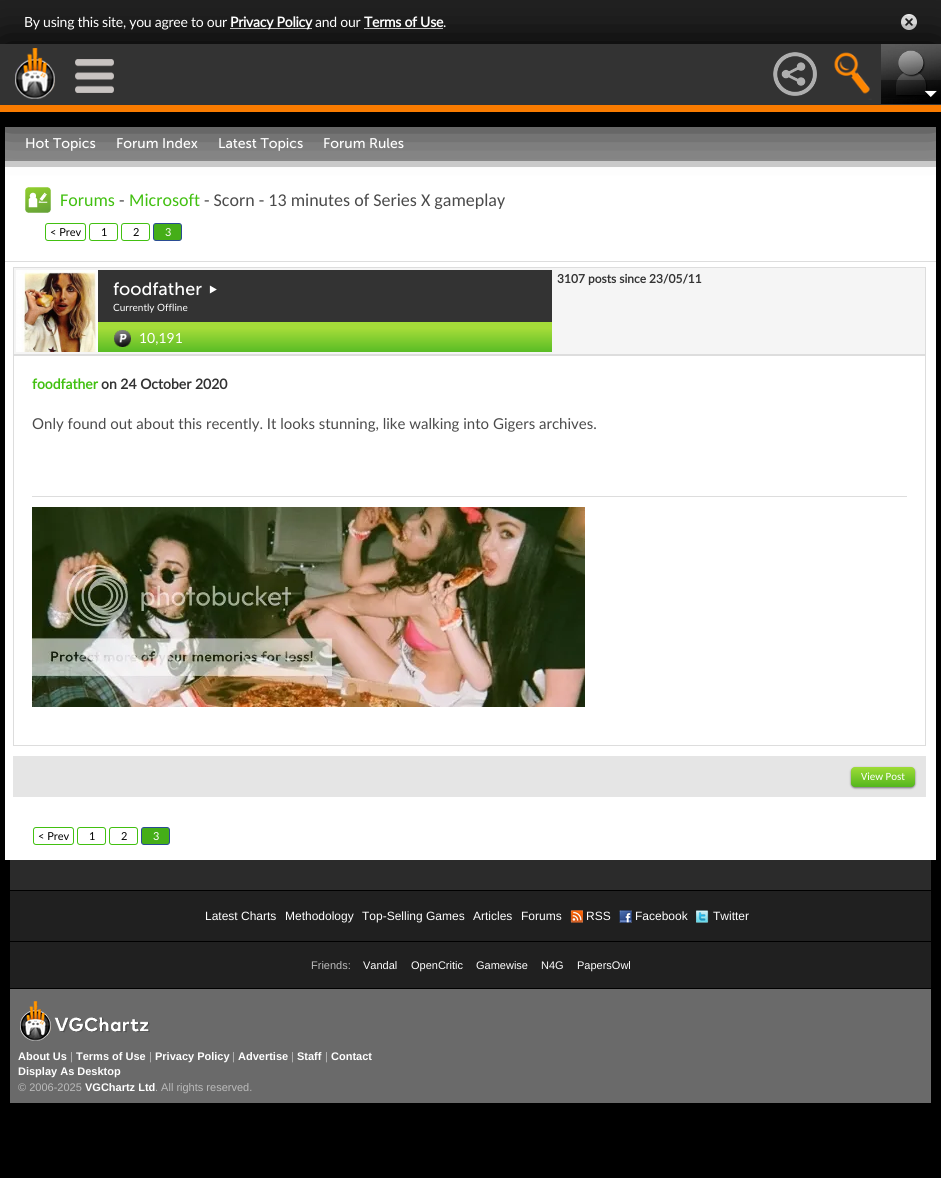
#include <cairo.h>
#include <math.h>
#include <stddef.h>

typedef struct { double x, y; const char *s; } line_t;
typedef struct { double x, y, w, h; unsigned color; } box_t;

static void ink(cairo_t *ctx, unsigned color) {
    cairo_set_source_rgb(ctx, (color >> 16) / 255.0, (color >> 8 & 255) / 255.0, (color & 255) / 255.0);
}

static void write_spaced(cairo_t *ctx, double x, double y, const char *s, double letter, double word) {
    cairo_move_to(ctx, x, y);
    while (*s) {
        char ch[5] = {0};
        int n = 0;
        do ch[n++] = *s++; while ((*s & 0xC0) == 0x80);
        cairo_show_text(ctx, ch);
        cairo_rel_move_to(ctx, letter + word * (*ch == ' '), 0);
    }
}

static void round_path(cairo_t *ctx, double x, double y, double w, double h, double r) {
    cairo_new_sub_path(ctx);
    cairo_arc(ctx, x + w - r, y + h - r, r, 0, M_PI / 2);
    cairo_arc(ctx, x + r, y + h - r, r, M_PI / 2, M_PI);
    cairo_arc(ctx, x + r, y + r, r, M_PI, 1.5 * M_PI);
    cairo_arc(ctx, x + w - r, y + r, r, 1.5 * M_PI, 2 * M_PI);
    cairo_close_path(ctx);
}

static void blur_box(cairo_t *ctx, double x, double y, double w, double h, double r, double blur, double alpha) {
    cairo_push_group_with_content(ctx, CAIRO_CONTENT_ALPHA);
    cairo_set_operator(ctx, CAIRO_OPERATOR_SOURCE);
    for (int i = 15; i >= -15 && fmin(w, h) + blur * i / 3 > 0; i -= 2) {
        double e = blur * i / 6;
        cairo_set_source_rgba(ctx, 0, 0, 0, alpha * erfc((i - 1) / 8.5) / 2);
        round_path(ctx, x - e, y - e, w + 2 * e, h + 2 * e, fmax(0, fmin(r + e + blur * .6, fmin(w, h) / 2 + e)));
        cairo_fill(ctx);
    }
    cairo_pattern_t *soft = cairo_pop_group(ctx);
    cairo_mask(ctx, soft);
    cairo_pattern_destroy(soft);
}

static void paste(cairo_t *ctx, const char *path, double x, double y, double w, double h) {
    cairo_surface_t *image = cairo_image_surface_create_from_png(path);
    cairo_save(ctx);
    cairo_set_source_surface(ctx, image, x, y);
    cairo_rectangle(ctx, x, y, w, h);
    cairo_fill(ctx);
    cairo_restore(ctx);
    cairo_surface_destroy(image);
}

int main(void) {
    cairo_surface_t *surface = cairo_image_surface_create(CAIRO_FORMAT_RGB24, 941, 1178);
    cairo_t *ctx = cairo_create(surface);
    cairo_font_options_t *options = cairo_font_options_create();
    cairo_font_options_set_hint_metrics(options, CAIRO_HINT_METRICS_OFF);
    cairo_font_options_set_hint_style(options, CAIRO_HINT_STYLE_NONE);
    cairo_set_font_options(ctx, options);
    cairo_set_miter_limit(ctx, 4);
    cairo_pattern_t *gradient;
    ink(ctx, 0x000000);
    cairo_paint(ctx);
    {
        static const box_t items[] = {
            {0, 0, 941, 44, 0x222222},
            {230, 28, 82, 1, 0xFFFFFF},
            {364, 28, 79, 1, 0xFFFFFF},
        };
        for (size_t i = 0; i < sizeof items / sizeof *items; i++) {
            ink(ctx, items[i].color);
            cairo_rectangle(ctx, items[i].x, items[i].y, items[i].w, items[i].h);
            cairo_fill(ctx);
        }
    }
    paste(ctx, "media/7.png", 901, 14, 16, 16);
    {
        static const box_t items[] = {
            {5, 167, 931, 693, 0xFFFFFF},
            {5, 127, 931, 34, 0x8A8A8A},
            {5, 161, 931, 6, 0xCDCDCD},
        };
        for (size_t i = 0; i < sizeof items / sizeof *items; i++) {
            ink(ctx, items[i].color);
            cairo_rectangle(ctx, items[i].x, items[i].y, items[i].w, items[i].h);
            cairo_fill(ctx);
        }
    }
    paste(ctx, "media/8.png", 25, 187, 26, 26);
    ink(ctx, 0x000000);
    blur_box(ctx, 0, 45, 941, 68, 0, 25, 1);
    ink(ctx, 0x333333);
    cairo_rectangle(ctx, 0, 44, 941, 61);
    cairo_fill(ctx);
    paste(ctx, "media/1.png", 15, 48, 40, 51);
    paste(ctx, "media/2.png", 75, 59, 39, 34);
    paste(ctx, "media/3.png", 773, 52, 44, 44);
    paste(ctx, "media/4.png", 834, 52, 38, 48);
    paste(ctx, "media/5.png", 881, 44, 60, 60);
    paste(ctx, "media/6.png", 881, 80, 60, 18);
    ink(ctx, 0xF97B00);
    cairo_rectangle(ctx, 0, 105, 941, 7);
    cairo_fill(ctx);
    cairo_select_font_face(ctx, "Lato", CAIRO_FONT_SLANT_NORMAL, CAIRO_FONT_WEIGHT_NORMAL);
    cairo_set_font_size(ctx, 14);
    ink(ctx, 0xFFFFFF);
    write_spaced(ctx, 24, 27, "By using this site, you agree to our", -0.25, 0);
    cairo_select_font_face(ctx, "Lato", CAIRO_FONT_SLANT_NORMAL, CAIRO_FONT_WEIGHT_BOLD);
    write_spaced(ctx, 230, 27, "Privacy Policy", -0.25, 0);
    cairo_select_font_face(ctx, "Lato", CAIRO_FONT_SLANT_NORMAL, CAIRO_FONT_WEIGHT_NORMAL);
    write_spaced(ctx, 315, 27, "and our", -0.25, 0);
    cairo_select_font_face(ctx, "Lato", CAIRO_FONT_SLANT_NORMAL, CAIRO_FONT_WEIGHT_BOLD);
    write_spaced(ctx, 364, 27, "Terms of Use", -0.25, 0);
    cairo_select_font_face(ctx, "Lato", CAIRO_FONT_SLANT_NORMAL, CAIRO_FONT_WEIGHT_NORMAL);
    write_spaced(ctx, 443, 27, ".", -0.25, 0);
    cairo_select_font_face(ctx, "Museo Sans", CAIRO_FONT_SLANT_NORMAL, CAIRO_FONT_WEIGHT_NORMAL);
    {
        static const line_t items[] = {
            {25, 148, "Hot Topics"},
            {116, 148, "Forum Index"},
            {218, 148, "Latest Topics"},
            {323, 148, "Forum Rules"},
        };
        for (size_t i = 0; i < sizeof items / sizeof *items; i++) {
            cairo_move_to(ctx, items[i].x, items[i].y);
            cairo_show_text(ctx, items[i].s);
        }
    }
    cairo_select_font_face(ctx, "Carlito", CAIRO_FONT_SLANT_NORMAL, CAIRO_FONT_WEIGHT_NORMAL);
    cairo_set_font_size(ctx, 18);
    ink(ctx, 0x42C011);
    cairo_move_to(ctx, 60, 206);
    cairo_show_text(ctx, "Forums");
    ink(ctx, 0x4B4B4B);
    cairo_move_to(ctx, 119, 206);
    cairo_show_text(ctx, "-");
    ink(ctx, 0x42C011);
    cairo_move_to(ctx, 129, 206);
    cairo_show_text(ctx, "Microsoft");
    ink(ctx, 0x4B4B4B);
    cairo_move_to(ctx, 204, 206);
    cairo_show_text(ctx, "- Scorn - 13 minutes of Series X gameplay");
    round_path(ctx, 45.5, 223.5, 40, 17, 2.5);
    ink(ctx, 0x42C011);
    cairo_set_line_width(ctx, 1);
    cairo_stroke(ctx);
    cairo_select_font_face(ctx, "Lato", CAIRO_FONT_SLANT_NORMAL, CAIRO_FONT_WEIGHT_NORMAL);
    cairo_set_font_size(ctx, 11);
    ink(ctx, 0x000000);
    cairo_move_to(ctx, 50, 236);
    cairo_show_text(ctx, "< Prev");
    round_path(ctx, 89.5, 223.5, 28, 17, 2.5);
    ink(ctx, 0x42C011);
    cairo_stroke(ctx);
    ink(ctx, 0x000000);
    cairo_move_to(ctx, 101, 236);
    cairo_show_text(ctx, "1");
    round_path(ctx, 121.5, 223.5, 28, 17, 2.5);
    ink(ctx, 0x42C011);
    cairo_stroke(ctx);
    ink(ctx, 0x000000);
    cairo_move_to(ctx, 133, 236);
    cairo_show_text(ctx, "2");
    ink(ctx, 0x45AE18);
    round_path(ctx, 153.5, 223.5, 28, 17, 2.5);
    cairo_fill_preserve(ctx);
    ink(ctx, 0x2A4C93);
    cairo_stroke(ctx);
    ink(ctx, 0xFFFFFF);
    cairo_move_to(ctx, 165, 236);
    cairo_show_text(ctx, "3");
    ink(ctx, 0xDDDDDD);
    cairo_rectangle(ctx, 5, 261, 931, 1);
    cairo_fill(ctx);
    ink(ctx, 0xF5F5F5);
    cairo_rectangle(ctx, 13.5, 267.5, 912, 87);
    cairo_fill_preserve(ctx);
    ink(ctx, 0xDDDDDD);
    cairo_stroke(ctx);
    paste(ctx, "media/9.png", 16, 270, 82, 82);
    cairo_select_font_face(ctx, "Lato", CAIRO_FONT_SLANT_NORMAL, CAIRO_FONT_WEIGHT_BOLD);
    cairo_set_font_size(ctx, 12);
    ink(ctx, 0x333333);
    cairo_move_to(ctx, 557, 283);
    cairo_show_text(ctx, "3107 posts since 23/05/11");
    gradient = cairo_pattern_create_linear(98, 270, 98, 352);
    cairo_pattern_add_color_stop_rgba(gradient, 0, 0.647, 0.863, 0.224, 1);
    cairo_pattern_add_color_stop_rgba(gradient, 0.71, 0.647, 0.863, 0.224, 1);
    cairo_pattern_add_color_stop_rgba(gradient, 1, 0.349, 0.737, 0.145, 1);
    cairo_set_source(ctx, gradient);
    cairo_pattern_destroy(gradient);
    cairo_rectangle(ctx, 98, 322, 454, 30);
    cairo_fill(ctx);
    ink(ctx, 0x333333);
    cairo_rectangle(ctx, 98, 270, 454, 52);
    cairo_fill(ctx);
    paste(ctx, "media/10.png", 209, 285, 8, 9);
    cairo_select_font_face(ctx, "Museo Sans", CAIRO_FONT_SLANT_NORMAL, CAIRO_FONT_WEIGHT_NORMAL);
    cairo_set_font_size(ctx, 18);
    ink(ctx, 0xFFFFFF);
    cairo_move_to(ctx, 113, 295);
    cairo_show_text(ctx, "foodfather");
    cairo_select_font_face(ctx, "Lato", CAIRO_FONT_SLANT_NORMAL, CAIRO_FONT_WEIGHT_NORMAL);
    cairo_set_font_size(ctx, 10);
    cairo_move_to(ctx, 113, 311);
    cairo_show_text(ctx, "Currently Offline");
    paste(ctx, "media/11.png", 114, 330, 17, 17);
    cairo_set_font_size(ctx, 14);
    cairo_move_to(ctx, 139, 343);
    cairo_show_text(ctx, "10,191");
    cairo_rectangle(ctx, 13.5, 355.5, 912, 390);
    ink(ctx, 0xDDDDDD);
    cairo_stroke(ctx);
    cairo_select_font_face(ctx, "Lato", CAIRO_FONT_SLANT_NORMAL, CAIRO_FONT_WEIGHT_BOLD);
    ink(ctx, 0x42C011);
    cairo_move_to(ctx, 32, 389);
    cairo_show_text(ctx, "foodfather");
    ink(ctx, 0x333333);
    cairo_move_to(ctx, 101, 389);
    cairo_show_text(ctx, "on 24 October 2020");
    cairo_select_font_face(ctx, "Lato", CAIRO_FONT_SLANT_NORMAL, CAIRO_FONT_WEIGHT_NORMAL);
    cairo_set_font_size(ctx, 15);
    ink(ctx, 0x4B4B4B);
    cairo_move_to(ctx, 32, 429);
    cairo_show_text(ctx, "Only found out about this recently. It looks stunning, like walking into Gigers archives.");
    ink(ctx, 0xDDDDDD);
    cairo_rectangle(ctx, 32, 496, 875, 1);
    cairo_fill(ctx);
    paste(ctx, "media/12.png", 32, 507, 553, 200);
    ink(ctx, 0xE5E5E5);
    cairo_rectangle(ctx, 13, 756, 913, 41);
    cairo_fill(ctx);
    ink(ctx, 0x767676);
    blur_box(ctx, 851, 768, 64, 20, 4, 1, 1);
    gradient = cairo_pattern_create_linear(851, 767, 851, 787);
    cairo_pattern_add_color_stop_rgba(gradient, 0, 0.62, 0.863, 0.212, 1);
    cairo_pattern_add_color_stop_rgba(gradient, 1, 0.329, 0.714, 0.114, 1);
    cairo_set_source(ctx, gradient);
    cairo_pattern_destroy(gradient);
    round_path(ctx, 851, 767, 64, 20, 4);
    cairo_fill(ctx);
    cairo_select_font_face(ctx, "Carlito", CAIRO_FONT_SLANT_NORMAL, CAIRO_FONT_WEIGHT_NORMAL);
    cairo_set_font_size(ctx, 11);
    ink(ctx, 0xFFFFFF);
    cairo_move_to(ctx, 861, 780);
    cairo_show_text(ctx, "View Post");
    round_path(ctx, 33.5, 827.5, 40, 17, 2.5);
    ink(ctx, 0x42C011);
    cairo_stroke(ctx);
    cairo_select_font_face(ctx, "Lato", CAIRO_FONT_SLANT_NORMAL, CAIRO_FONT_WEIGHT_NORMAL);
    ink(ctx, 0x000000);
    cairo_move_to(ctx, 38, 840);
    cairo_show_text(ctx, "< Prev");
    round_path(ctx, 77.5, 827.5, 28, 17, 2.5);
    ink(ctx, 0x42C011);
    cairo_stroke(ctx);
    ink(ctx, 0x000000);
    cairo_move_to(ctx, 89, 840);
    cairo_show_text(ctx, "1");
    round_path(ctx, 109.5, 827.5, 28, 17, 2.5);
    ink(ctx, 0x42C011);
    cairo_stroke(ctx);
    ink(ctx, 0x000000);
    cairo_move_to(ctx, 121, 840);
    cairo_show_text(ctx, "2");
    ink(ctx, 0x45AE18);
    round_path(ctx, 141.5, 827.5, 28, 17, 2.5);
    cairo_fill_preserve(ctx);
    ink(ctx, 0x2A4C93);
    cairo_stroke(ctx);
    ink(ctx, 0xFFFFFF);
    cairo_move_to(ctx, 153, 840);
    cairo_show_text(ctx, "3");
    ink(ctx, 0x2B2B2B);
    cairo_rectangle(ctx, 10, 860, 921, 30);
    cairo_fill(ctx);
    ink(ctx, 0x202020);
    cairo_rectangle(ctx, 10, 891, 921, 50);
    cairo_fill(ctx);
    cairo_select_font_face(ctx, "Liberation Sans", CAIRO_FONT_SLANT_NORMAL, CAIRO_FONT_WEIGHT_NORMAL);
    cairo_set_font_size(ctx, 12);
    ink(ctx, 0xFFFFFF);
    {
        static const line_t items[] = {
            {205, 920, "Latest Charts"},
            {285, 920, "Methodology"},
            {362, 920, "Top-Selling Games"},
            {473, 920, "Articles"},
            {521, 920, "Forums"},
        };
        for (size_t i = 0; i < sizeof items / sizeof *items; i++) {
            cairo_move_to(ctx, items[i].x, items[i].y);
            cairo_show_text(ctx, items[i].s);
        }
    }
    paste(ctx, "media/13.png", 570, 910, 13, 13);
    cairo_move_to(ctx, 586, 920);
    cairo_show_text(ctx, "RSS");
    paste(ctx, "media/14.png", 619, 910, 13, 13);
    cairo_move_to(ctx, 635, 920);
    cairo_show_text(ctx, "Facebook");
    paste(ctx, "media/15.png", 696, 910, 13, 13);
    cairo_move_to(ctx, 713, 920);
    cairo_show_text(ctx, "Twitter");
    ink(ctx, 0x202020);
    cairo_rectangle(ctx, 10, 942, 921, 46);
    cairo_fill(ctx);
    cairo_set_font_size(ctx, 11);
    ink(ctx, 0xBBBBBB);
    cairo_move_to(ctx, 311, 969);
    cairo_show_text(ctx, "Friends:");
    ink(ctx, 0xFFFFFF);
    {
        static const line_t items[] = {
            {363, 969, "Vandal"},
            {411, 969, "OpenCritic"},
            {476, 969, "Gamewise"},
            {541, 969, "N4G"},
            {577, 969, "PapersOwl"},
        };
        for (size_t i = 0; i < sizeof items / sizeof *items; i++) {
            cairo_move_to(ctx, items[i].x, items[i].y);
            cairo_show_text(ctx, items[i].s);
        }
    }
    ink(ctx, 0x6A6A6A);
    cairo_rectangle(ctx, 10, 989, 921, 114);
    cairo_fill(ctx);
    paste(ctx, "media/16.png", 20, 1001, 130, 40);
    cairo_select_font_face(ctx, "Liberation Sans", CAIRO_FONT_SLANT_NORMAL, CAIRO_FONT_WEIGHT_BOLD);
    ink(ctx, 0xFFFFFF);
    cairo_move_to(ctx, 18, 1060);
    cairo_show_text(ctx, "About Us");
    cairo_select_font_face(ctx, "Liberation Sans", CAIRO_FONT_SLANT_NORMAL, CAIRO_FONT_WEIGHT_NORMAL);
    ink(ctx, 0xBBBBBB);
    cairo_move_to(ctx, 70, 1060);
    cairo_show_text(ctx, "|");
    cairo_select_font_face(ctx, "Liberation Sans", CAIRO_FONT_SLANT_NORMAL, CAIRO_FONT_WEIGHT_BOLD);
    ink(ctx, 0xFFFFFF);
    cairo_move_to(ctx, 76, 1060);
    cairo_show_text(ctx, "Terms of Use");
    cairo_select_font_face(ctx, "Liberation Sans", CAIRO_FONT_SLANT_NORMAL, CAIRO_FONT_WEIGHT_NORMAL);
    ink(ctx, 0xBBBBBB);
    cairo_move_to(ctx, 149, 1060);
    cairo_show_text(ctx, "|");
    cairo_select_font_face(ctx, "Liberation Sans", CAIRO_FONT_SLANT_NORMAL, CAIRO_FONT_WEIGHT_BOLD);
    ink(ctx, 0xFFFFFF);
    cairo_move_to(ctx, 155, 1060);
    cairo_show_text(ctx, "Privacy Policy");
    cairo_select_font_face(ctx, "Liberation Sans", CAIRO_FONT_SLANT_NORMAL, CAIRO_FONT_WEIGHT_NORMAL);
    ink(ctx, 0xBBBBBB);
    cairo_move_to(ctx, 232, 1060);
    cairo_show_text(ctx, "|");
    cairo_select_font_face(ctx, "Liberation Sans", CAIRO_FONT_SLANT_NORMAL, CAIRO_FONT_WEIGHT_BOLD);
    ink(ctx, 0xFFFFFF);
    cairo_move_to(ctx, 238, 1060);
    cairo_show_text(ctx, "Advertise");
    cairo_select_font_face(ctx, "Liberation Sans", CAIRO_FONT_SLANT_NORMAL, CAIRO_FONT_WEIGHT_NORMAL);
    ink(ctx, 0xBBBBBB);
    cairo_move_to(ctx, 291, 1060);
    cairo_show_text(ctx, "|");
    cairo_select_font_face(ctx, "Liberation Sans", CAIRO_FONT_SLANT_NORMAL, CAIRO_FONT_WEIGHT_BOLD);
    ink(ctx, 0xFFFFFF);
    cairo_move_to(ctx, 297, 1060);
    cairo_show_text(ctx, "Staff");
    cairo_select_font_face(ctx, "Liberation Sans", CAIRO_FONT_SLANT_NORMAL, CAIRO_FONT_WEIGHT_NORMAL);
    ink(ctx, 0xBBBBBB);
    cairo_move_to(ctx, 325, 1060);
    cairo_show_text(ctx, "|");
    cairo_select_font_face(ctx, "Liberation Sans", CAIRO_FONT_SLANT_NORMAL, CAIRO_FONT_WEIGHT_BOLD);
    ink(ctx, 0xFFFFFF);
    cairo_move_to(ctx, 331, 1060);
    cairo_show_text(ctx, "Contact");
    cairo_move_to(ctx, 18, 1075);
    cairo_show_text(ctx, "Display As Desktop");
    cairo_select_font_face(ctx, "Liberation Sans", CAIRO_FONT_SLANT_NORMAL, CAIRO_FONT_WEIGHT_NORMAL);
    ink(ctx, 0xBBBBBB);
    cairo_move_to(ctx, 18, 1091);
    cairo_show_text(ctx, "© 2006-2025");
    cairo_select_font_face(ctx, "Liberation Sans", CAIRO_FONT_SLANT_NORMAL, CAIRO_FONT_WEIGHT_BOLD);
    ink(ctx, 0xFFFFFF);
    cairo_move_to(ctx, 85, 1091);
    cairo_show_text(ctx, "VGChartz Ltd");
    cairo_select_font_face(ctx, "Liberation Sans", CAIRO_FONT_SLANT_NORMAL, CAIRO_FONT_WEIGHT_NORMAL);
    ink(ctx, 0xBBBBBB);
    cairo_move_to(ctx, 155, 1091);
    cairo_show_text(ctx, ". All rights reserved.");
    cairo_surface_write_to_png(surface, "image.png");
    cairo_font_options_destroy(options);
    cairo_destroy(ctx);
    cairo_surface_destroy(surface);
    return 0;
}
